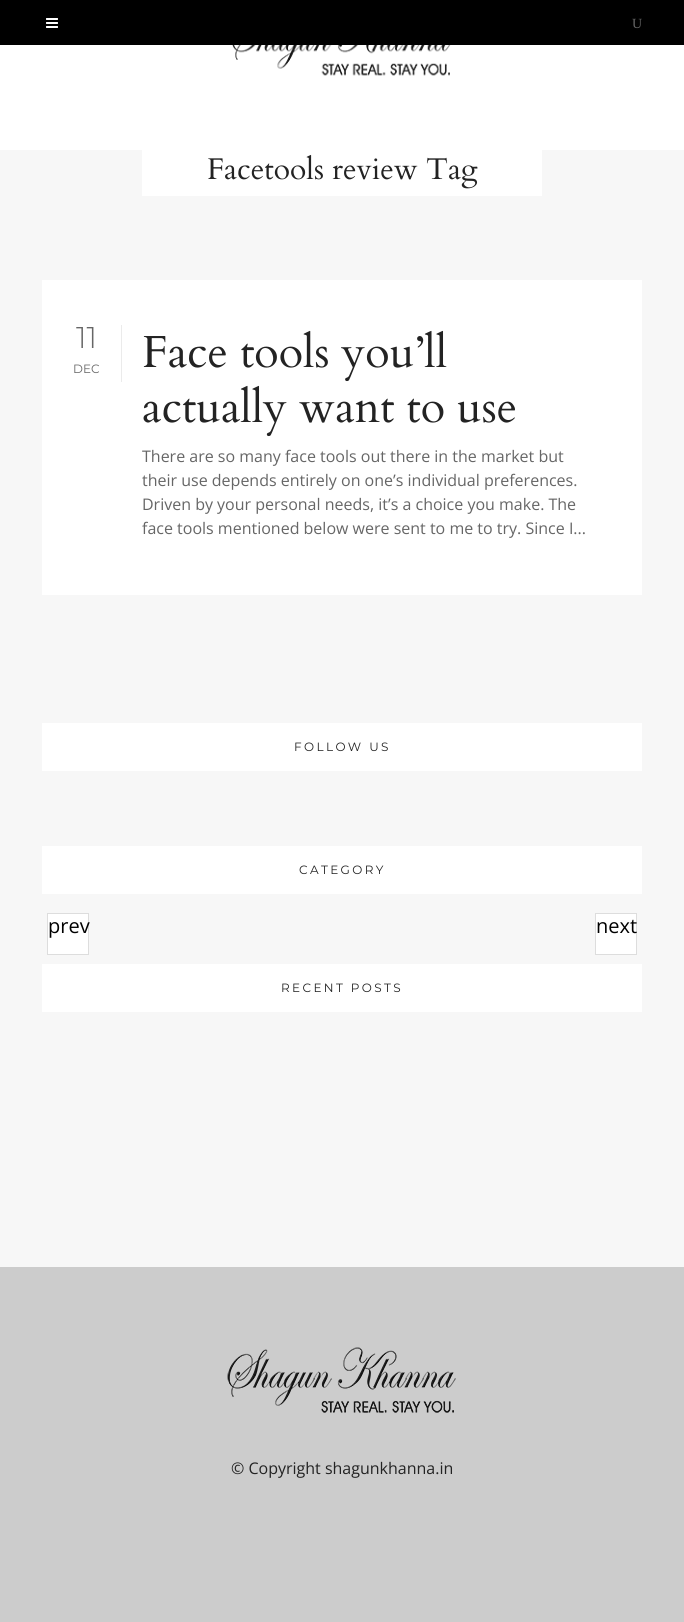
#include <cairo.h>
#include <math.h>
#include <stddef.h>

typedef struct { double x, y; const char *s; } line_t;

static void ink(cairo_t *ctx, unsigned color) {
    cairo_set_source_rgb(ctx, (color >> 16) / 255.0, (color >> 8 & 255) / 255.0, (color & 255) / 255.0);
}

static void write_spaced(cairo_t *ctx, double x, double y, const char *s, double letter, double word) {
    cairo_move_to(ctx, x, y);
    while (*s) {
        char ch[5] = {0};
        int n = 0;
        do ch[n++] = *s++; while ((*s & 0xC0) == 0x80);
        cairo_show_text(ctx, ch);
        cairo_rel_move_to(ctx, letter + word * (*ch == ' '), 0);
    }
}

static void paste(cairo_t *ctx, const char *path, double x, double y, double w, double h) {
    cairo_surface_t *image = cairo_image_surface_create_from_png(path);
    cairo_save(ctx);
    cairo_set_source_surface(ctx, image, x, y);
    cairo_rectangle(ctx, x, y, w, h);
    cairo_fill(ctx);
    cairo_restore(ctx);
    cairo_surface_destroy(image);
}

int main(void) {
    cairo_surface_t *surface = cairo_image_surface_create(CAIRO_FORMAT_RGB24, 684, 1622);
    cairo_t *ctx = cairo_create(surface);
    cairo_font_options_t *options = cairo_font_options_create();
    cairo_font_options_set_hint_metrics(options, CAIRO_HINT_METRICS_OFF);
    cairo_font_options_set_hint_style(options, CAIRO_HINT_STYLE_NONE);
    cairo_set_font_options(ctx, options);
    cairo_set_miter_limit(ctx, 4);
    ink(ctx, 0xF7F7F7);
    cairo_paint(ctx);
    ink(ctx, 0x000000);
    cairo_rectangle(ctx, 0, 0, 684, 45);
    cairo_fill(ctx);
    paste(ctx, "media/1.png", 46, 18, 12, 10);
    cairo_select_font_face(ctx, "Liberation Serif", CAIRO_FONT_SLANT_NORMAL, CAIRO_FONT_WEIGHT_NORMAL);
    cairo_set_font_size(ctx, 14);
    ink(ctx, 0x666666);
    cairo_move_to(ctx, 632, 28);
    cairo_show_text(ctx, "U");
    ink(ctx, 0xFFFFFF);
    cairo_rectangle(ctx, 0, 45, 684, 105);
    cairo_fill(ctx);
    paste(ctx, "media/2.png", 232, 45, 219, 31);
    cairo_rectangle(ctx, 142, 150, 400, 46);
    cairo_fill(ctx);
    cairo_select_font_face(ctx, "Cardo", CAIRO_FONT_SLANT_NORMAL, CAIRO_FONT_WEIGHT_NORMAL);
    cairo_set_font_size(ctx, 30);
    ink(ctx, 0x232323);
    cairo_move_to(ctx, 207, 179);
    cairo_show_text(ctx, "Facetools review Tag");
    ink(ctx, 0xFFFFFF);
    cairo_rectangle(ctx, 42, 280, 600, 315);
    cairo_fill(ctx);
    ink(ctx, 0xEBEBEB);
    cairo_rectangle(ctx, 121, 325, 1, 57);
    cairo_fill(ctx);
    cairo_select_font_face(ctx, "Montserrat Light", CAIRO_FONT_SLANT_NORMAL, CAIRO_FONT_WEIGHT_NORMAL);
    ink(ctx, 0x666666);
    cairo_move_to(ctx, 76, 348);
    cairo_show_text(ctx, "11");
    cairo_select_font_face(ctx, "Montserrat", CAIRO_FONT_SLANT_NORMAL, CAIRO_FONT_WEIGHT_NORMAL);
    cairo_set_font_size(ctx, 12);
    cairo_move_to(ctx, 73, 373);
    cairo_show_text(ctx, "DEC");
    cairo_select_font_face(ctx, "Cardo", CAIRO_FONT_SLANT_NORMAL, CAIRO_FONT_WEIGHT_NORMAL);
    cairo_set_font_size(ctx, 45);
    ink(ctx, 0x232323);
    cairo_move_to(ctx, 142, 367);
    cairo_show_text(ctx, "Face tools you’ll");
    cairo_move_to(ctx, 142, 422);
    cairo_show_text(ctx, "actually want to use");
    cairo_select_font_face(ctx, "Open Sans", CAIRO_FONT_SLANT_NORMAL, CAIRO_FONT_WEIGHT_NORMAL);
    cairo_set_font_size(ctx, 16);
    ink(ctx, 0x666666);
    {
        static const line_t items[] = {
            {142, 462, "There are so many face tools out there in the market but"},
            {142, 486, "their use depends entirely on one’s individual preferences."},
            {142, 510, "Driven by your personal needs, it’s a choice you make. The"},
            {142, 534, "face tools mentioned below were sent to me to try. Since I..."},
        };
        for (size_t i = 0; i < sizeof items / sizeof *items; i++) {
            cairo_move_to(ctx, items[i].x, items[i].y);
            cairo_show_text(ctx, items[i].s);
        }
    }
    ink(ctx, 0xFFFFFF);
    cairo_rectangle(ctx, 42, 723, 600, 48);
    cairo_fill(ctx);
    cairo_select_font_face(ctx, "Montserrat", CAIRO_FONT_SLANT_NORMAL, CAIRO_FONT_WEIGHT_NORMAL);
    cairo_set_font_size(ctx, 12);
    ink(ctx, 0x232323);
    write_spaced(ctx, 294, 751, "FOLLOW US", 2.4, 0);
    ink(ctx, 0xFFFFFF);
    cairo_rectangle(ctx, 42, 846, 600, 48);
    cairo_fill(ctx);
    ink(ctx, 0x232323);
    write_spaced(ctx, 299, 874, "CATEGORY", 2.4, 0);
    ink(ctx, 0xFFFFFF);
    cairo_rectangle(ctx, 47.5, 913.5, 41, 41);
    cairo_fill_preserve(ctx);
    ink(ctx, 0xDDDDDD);
    cairo_set_line_width(ctx, 1);
    cairo_stroke(ctx);
    cairo_select_font_face(ctx, "Open Sans", CAIRO_FONT_SLANT_NORMAL, CAIRO_FONT_WEIGHT_NORMAL);
    cairo_set_font_size(ctx, 20);
    ink(ctx, 0x000000);
    cairo_move_to(ctx, 48, 933);
    cairo_show_text(ctx, "prev");
    ink(ctx, 0xFFFFFF);
    cairo_rectangle(ctx, 595.5, 913.5, 41, 41);
    cairo_fill_preserve(ctx);
    ink(ctx, 0xDDDDDD);
    cairo_stroke(ctx);
    ink(ctx, 0x000000);
    cairo_move_to(ctx, 596, 933);
    cairo_show_text(ctx, "next");
    ink(ctx, 0xFFFFFF);
    cairo_rectangle(ctx, 42, 964, 600, 48);
    cairo_fill(ctx);
    cairo_select_font_face(ctx, "Montserrat", CAIRO_FONT_SLANT_NORMAL, CAIRO_FONT_WEIGHT_NORMAL);
    cairo_set_font_size(ctx, 12);
    ink(ctx, 0x232323);
    write_spaced(ctx, 281, 992, "RECENT POSTS", 2.4, 0);
    ink(ctx, 0xCCCCCC);
    cairo_rectangle(ctx, 0, 1267, 684, 355);
    cairo_fill(ctx);
    paste(ctx, "media/3.png", 227, 1347, 229, 66);
    cairo_select_font_face(ctx, "Open Sans", CAIRO_FONT_SLANT_NORMAL, CAIRO_FONT_WEIGHT_NORMAL);
    cairo_set_font_size(ctx, 16);
    ink(ctx, 0x232323);
    cairo_move_to(ctx, 231, 1474);
    cairo_show_text(ctx, "© Copyright shagunkhanna.in");
    cairo_surface_write_to_png(surface, "image.png");
    cairo_font_options_destroy(options);
    cairo_destroy(ctx);
    cairo_surface_destroy(surface);
    return 0;
}
